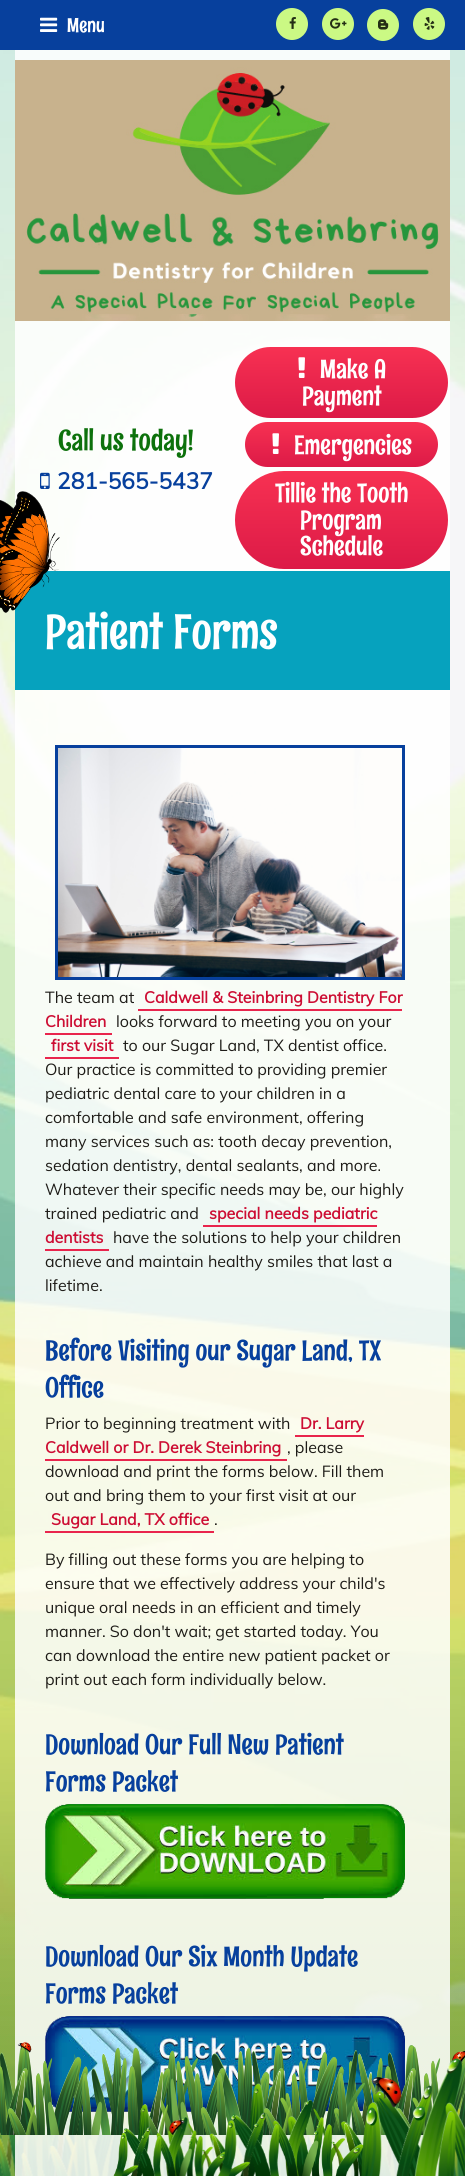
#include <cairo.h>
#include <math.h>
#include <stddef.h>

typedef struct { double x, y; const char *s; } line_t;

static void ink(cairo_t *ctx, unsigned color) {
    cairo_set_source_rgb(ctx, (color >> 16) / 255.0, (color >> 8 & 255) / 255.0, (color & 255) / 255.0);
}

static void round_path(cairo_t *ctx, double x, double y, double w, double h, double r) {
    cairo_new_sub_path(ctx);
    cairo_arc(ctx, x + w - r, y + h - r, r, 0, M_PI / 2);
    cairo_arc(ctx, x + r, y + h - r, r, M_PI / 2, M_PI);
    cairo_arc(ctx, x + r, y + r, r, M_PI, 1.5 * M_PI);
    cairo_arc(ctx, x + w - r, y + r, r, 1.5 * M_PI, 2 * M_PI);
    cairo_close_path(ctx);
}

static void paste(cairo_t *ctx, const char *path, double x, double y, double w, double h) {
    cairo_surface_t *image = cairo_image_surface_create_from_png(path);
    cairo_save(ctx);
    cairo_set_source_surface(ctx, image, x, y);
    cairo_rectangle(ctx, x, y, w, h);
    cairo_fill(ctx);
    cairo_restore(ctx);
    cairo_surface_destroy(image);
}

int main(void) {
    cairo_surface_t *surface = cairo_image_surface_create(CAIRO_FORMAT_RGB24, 465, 2176);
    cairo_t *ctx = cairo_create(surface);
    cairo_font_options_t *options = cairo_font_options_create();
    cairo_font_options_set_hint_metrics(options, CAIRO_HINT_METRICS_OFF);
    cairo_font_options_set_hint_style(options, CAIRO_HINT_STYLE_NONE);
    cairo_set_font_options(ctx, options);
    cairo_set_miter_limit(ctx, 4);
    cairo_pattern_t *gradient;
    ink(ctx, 0xFFFFFF);
    cairo_paint(ctx);
    paste(ctx, "media/1.png", 0, 50, 465, 2126);
    ink(ctx, 0x07409D);
    cairo_rectangle(ctx, 0, 0, 465, 50);
    cairo_fill(ctx);
    ink(ctx, 0xCBF984);
    cairo_arc(ctx, 292, 24, 16, 0, 2 * M_PI);
    cairo_fill(ctx);
    paste(ctx, "media/2.png", 289, 17, 7, 12);
    cairo_arc(ctx, 338, 24, 16, 0, 2 * M_PI);
    cairo_fill(ctx);
    paste(ctx, "media/3.png", 330, 18, 17, 11);
    cairo_arc(ctx, 383, 25, 16, 0, 2 * M_PI);
    cairo_fill(ctx);
    paste(ctx, "media/4.png", 378, 19, 11, 11);
    cairo_arc(ctx, 429, 24, 16, 0, 2 * M_PI);
    cairo_fill(ctx);
    paste(ctx, "media/5.png", 424, 17, 11, 13);
    cairo_set_source_rgba(ctx, 1, 1, 1, 0.85);
    cairo_rectangle(ctx, 15, 50, 435, 521);
    cairo_fill(ctx);
    paste(ctx, "media/6.png", 40, 17, 18, 15);
    cairo_select_font_face(ctx, "Rum Raisin", CAIRO_FONT_SLANT_NORMAL, CAIRO_FONT_WEIGHT_NORMAL);
    cairo_set_font_size(ctx, 20);
    ink(ctx, 0xFFFFFF);
    cairo_move_to(ctx, 67, 32);
    cairo_show_text(ctx, "Menu");
    paste(ctx, "media/7.png", 15, 60, 435, 261);
    cairo_set_font_size(ctx, 29);
    ink(ctx, 0x0D710C);
    cairo_move_to(ctx, 58, 450);
    cairo_show_text(ctx, "Call us today!");
    paste(ctx, "media/8.png", 40, 472, 10, 17);
    cairo_select_font_face(ctx, "Muli", CAIRO_FONT_SLANT_NORMAL, CAIRO_FONT_WEIGHT_BOLD);
    cairo_set_font_size(ctx, 22.75);
    ink(ctx, 0x07409D);
    cairo_move_to(ctx, 57, 489);
    cairo_show_text(ctx, "281-565-5437");
    gradient = cairo_pattern_create_linear(342, 347, 342, 418);
    cairo_pattern_add_color_stop_rgba(gradient, 0, 0.969, 0.192, 0.322, 1);
    cairo_pattern_add_color_stop_rgba(gradient, 1, 0.863, 0.102, 0.278, 1);
    cairo_set_source(ctx, gradient);
    cairo_pattern_destroy(gradient);
    round_path(ctx, 235, 347, 213, 71, 35.5);
    cairo_fill(ctx);
    paste(ctx, "media/9.png", 298, 357, 7, 21);
    cairo_select_font_face(ctx, "Rum Raisin", CAIRO_FONT_SLANT_NORMAL, CAIRO_FONT_WEIGHT_NORMAL);
    cairo_set_font_size(ctx, 26.5);
    ink(ctx, 0xFFFFFF);
    cairo_move_to(ctx, 320, 378);
    cairo_show_text(ctx, "Make A");
    cairo_move_to(ctx, 302, 405);
    cairo_show_text(ctx, "Payment");
    gradient = cairo_pattern_create_linear(342, 422, 342, 467);
    cairo_pattern_add_color_stop_rgba(gradient, 0, 0.969, 0.192, 0.322, 1);
    cairo_pattern_add_color_stop_rgba(gradient, 1, 0.863, 0.102, 0.278, 1);
    cairo_set_source(ctx, gradient);
    cairo_pattern_destroy(gradient);
    round_path(ctx, 245, 422, 193, 45, 22.5);
    cairo_fill(ctx);
    paste(ctx, "media/10.png", 272, 433, 7, 21);
    ink(ctx, 0xFFFFFF);
    cairo_move_to(ctx, 294, 454);
    cairo_show_text(ctx, "Emergencies");
    gradient = cairo_pattern_create_linear(342, 471, 342, 569);
    cairo_pattern_add_color_stop_rgba(gradient, 0, 0.969, 0.192, 0.322, 1);
    cairo_pattern_add_color_stop_rgba(gradient, 1, 0.863, 0.102, 0.278, 1);
    cairo_set_source(ctx, gradient);
    cairo_pattern_destroy(gradient);
    round_path(ctx, 235, 471, 213, 98, 49);
    cairo_fill(ctx);
    ink(ctx, 0xFFFFFF);
    {
        static const line_t items[] = {
            {275, 502, "Tillie the Tooth"},
            {300, 529, "Program"},
            {300, 555, "Schedule"},
        };
        for (size_t i = 0; i < sizeof items / sizeof *items; i++) {
            cairo_move_to(ctx, items[i].x, items[i].y);
            cairo_show_text(ctx, items[i].s);
        }
    }
    ink(ctx, 0x06A2BE);
    cairo_rectangle(ctx, 15, 571, 435, 119);
    cairo_fill(ctx);
    cairo_set_font_size(ctx, 48);
    ink(ctx, 0xFFFFFF);
    cairo_move_to(ctx, 45, 648);
    cairo_show_text(ctx, "Patient Forms");
    paste(ctx, "media/11.png", 0, 491, 60, 122);
    cairo_set_source_rgba(ctx, 1, 1, 1, 0.85);
    cairo_rectangle(ctx, 15, 690, 435, 1486);
    cairo_fill(ctx);
    cairo_rectangle(ctx, 56.5, 746.5, 347, 232);
    ink(ctx, 0x07409D);
    cairo_set_line_width(ctx, 3);
    cairo_stroke(ctx);
    paste(ctx, "media/12.png", 58, 748, 344, 229);
    cairo_select_font_face(ctx, "Muli", CAIRO_FONT_SLANT_NORMAL, CAIRO_FONT_WEIGHT_NORMAL);
    cairo_set_font_size(ctx, 16);
    ink(ctx, 0x1E1C18);
    cairo_move_to(ctx, 45, 1003);
    cairo_show_text(ctx, "The team at");
    cairo_select_font_face(ctx, "Muli", CAIRO_FONT_SLANT_NORMAL, CAIRO_FONT_WEIGHT_BOLD);
    ink(ctx, 0xCD0E34);
    cairo_move_to(ctx, 144, 1003);
    cairo_show_text(ctx, "Caldwell & Steinbring Dentistry For");
    ink(ctx, 0xE9254D);
    cairo_rectangle(ctx, 138, 1009, 264, 2);
    cairo_fill(ctx);
    ink(ctx, 0xCD0E34);
    cairo_move_to(ctx, 45, 1027);
    cairo_show_text(ctx, "Children");
    ink(ctx, 0xE9254D);
    cairo_rectangle(ctx, 45, 1033, 67, 2);
    cairo_fill(ctx);
    cairo_select_font_face(ctx, "Muli", CAIRO_FONT_SLANT_NORMAL, CAIRO_FONT_WEIGHT_NORMAL);
    ink(ctx, 0x1E1C18);
    cairo_move_to(ctx, 116, 1027);
    cairo_show_text(ctx, "looks forward to meeting you on your");
    cairo_select_font_face(ctx, "Muli", CAIRO_FONT_SLANT_NORMAL, CAIRO_FONT_WEIGHT_BOLD);
    ink(ctx, 0xCD0E34);
    cairo_move_to(ctx, 51, 1051);
    cairo_show_text(ctx, "first visit");
    ink(ctx, 0xE9254D);
    cairo_rectangle(ctx, 45, 1057, 74, 2);
    cairo_fill(ctx);
    cairo_select_font_face(ctx, "Muli", CAIRO_FONT_SLANT_NORMAL, CAIRO_FONT_WEIGHT_NORMAL);
    ink(ctx, 0x1E1C18);
    {
        static const line_t items[] = {
            {123, 1051, "to our Sugar Land, TX dentist office."},
            {45, 1075, "Our practice is committed to providing premier"},
            {45, 1099, "pediatric dental care to your children in a"},
            {45, 1123, "comfortable and safe environment, offering"},
            {45, 1147, "many services such as: tooth decay prevention,"},
            {45, 1171, "sedation dentistry, dental sealants, and more."},
            {45, 1195, "Whatever their specific needs may be, our highly"},
            {45, 1219, "trained pediatric and"},
        };
        for (size_t i = 0; i < sizeof items / sizeof *items; i++) {
            cairo_move_to(ctx, items[i].x, items[i].y);
            cairo_show_text(ctx, items[i].s);
        }
    }
    cairo_select_font_face(ctx, "Muli", CAIRO_FONT_SLANT_NORMAL, CAIRO_FONT_WEIGHT_BOLD);
    ink(ctx, 0xCD0E34);
    cairo_move_to(ctx, 209, 1219);
    cairo_show_text(ctx, "special needs pediatric");
    ink(ctx, 0xE9254D);
    cairo_rectangle(ctx, 203, 1225, 174, 2);
    cairo_fill(ctx);
    ink(ctx, 0xCD0E34);
    cairo_move_to(ctx, 45, 1243);
    cairo_show_text(ctx, "dentists");
    ink(ctx, 0xE9254D);
    cairo_rectangle(ctx, 45, 1249, 64, 2);
    cairo_fill(ctx);
    cairo_select_font_face(ctx, "Muli", CAIRO_FONT_SLANT_NORMAL, CAIRO_FONT_WEIGHT_NORMAL);
    ink(ctx, 0x1E1C18);
    {
        static const line_t items[] = {
            {113, 1243, "have the solutions to help your children"},
            {45, 1267, "achieve and maintain healthy smiles that last a"},
            {45, 1291, "lifetime."},
        };
        for (size_t i = 0; i < sizeof items / sizeof *items; i++) {
            cairo_move_to(ctx, items[i].x, items[i].y);
            cairo_show_text(ctx, items[i].s);
        }
    }
    cairo_select_font_face(ctx, "Rum Raisin", CAIRO_FONT_SLANT_NORMAL, CAIRO_FONT_WEIGHT_NORMAL);
    cairo_set_font_size(ctx, 28);
    ink(ctx, 0x07409D);
    cairo_move_to(ctx, 45, 1360);
    cairo_show_text(ctx, "Before Visiting our Sugar Land, TX");
    cairo_move_to(ctx, 45, 1397);
    cairo_show_text(ctx, "Office");
    cairo_select_font_face(ctx, "Muli", CAIRO_FONT_SLANT_NORMAL, CAIRO_FONT_WEIGHT_NORMAL);
    cairo_set_font_size(ctx, 16);
    ink(ctx, 0x1E1C18);
    cairo_move_to(ctx, 45, 1429);
    cairo_show_text(ctx, "Prior to beginning treatment with");
    cairo_select_font_face(ctx, "Muli", CAIRO_FONT_SLANT_NORMAL, CAIRO_FONT_WEIGHT_BOLD);
    ink(ctx, 0xCD0E34);
    cairo_move_to(ctx, 300, 1429);
    cairo_show_text(ctx, "Dr. Larry");
    ink(ctx, 0xE9254D);
    cairo_rectangle(ctx, 295, 1435, 69, 2);
    cairo_fill(ctx);
    ink(ctx, 0xCD0E34);
    cairo_move_to(ctx, 45, 1453);
    cairo_show_text(ctx, "Caldwell or Dr. Derek Steinbring");
    ink(ctx, 0xE9254D);
    cairo_rectangle(ctx, 45, 1459, 242, 2);
    cairo_fill(ctx);
    cairo_select_font_face(ctx, "Muli", CAIRO_FONT_SLANT_NORMAL, CAIRO_FONT_WEIGHT_NORMAL);
    ink(ctx, 0x1E1C18);
    {
        static const line_t items[] = {
            {287, 1453, ", please"},
            {45, 1477, "download and print the forms below. Fill them"},
            {45, 1501, "out and bring them to your first visit at our"},
        };
        for (size_t i = 0; i < sizeof items / sizeof *items; i++) {
            cairo_move_to(ctx, items[i].x, items[i].y);
            cairo_show_text(ctx, items[i].s);
        }
    }
    cairo_select_font_face(ctx, "Muli", CAIRO_FONT_SLANT_NORMAL, CAIRO_FONT_WEIGHT_BOLD);
    ink(ctx, 0xCD0E34);
    cairo_move_to(ctx, 51, 1525);
    cairo_show_text(ctx, "Sugar Land, TX office");
    ink(ctx, 0xE9254D);
    cairo_rectangle(ctx, 45, 1531, 169, 2);
    cairo_fill(ctx);
    cairo_select_font_face(ctx, "Muli", CAIRO_FONT_SLANT_NORMAL, CAIRO_FONT_WEIGHT_NORMAL);
    ink(ctx, 0x1E1C18);
    {
        static const line_t items[] = {
            {214, 1525, "."},
            {45, 1565, "By filling out these forms you are helping to"},
            {45, 1589, "ensure that we effectively address your child's"},
            {45, 1613, "unique oral needs in an efficient and timely"},
            {45, 1637, "manner. So don't wait; get started today. You"},
            {45, 1661, "can download the entire new patient packet or"},
            {45, 1685, "print out each form individually below."},
        };
        for (size_t i = 0; i < sizeof items / sizeof *items; i++) {
            cairo_move_to(ctx, items[i].x, items[i].y);
            cairo_show_text(ctx, items[i].s);
        }
    }
    cairo_select_font_face(ctx, "Rum Raisin", CAIRO_FONT_SLANT_NORMAL, CAIRO_FONT_WEIGHT_NORMAL);
    cairo_set_font_size(ctx, 28);
    ink(ctx, 0x07409D);
    cairo_move_to(ctx, 45, 1754);
    cairo_show_text(ctx, "Download Our Full New Patient");
    cairo_move_to(ctx, 45, 1791);
    cairo_show_text(ctx, "Forms Packet");
    paste(ctx, "media/13.png", 45, 1804, 360, 95);
    cairo_move_to(ctx, 45, 1966);
    cairo_show_text(ctx, "Download Our Six Month Update");
    cairo_move_to(ctx, 45, 2003);
    cairo_show_text(ctx, "Forms Packet");
    paste(ctx, "media/14.png", 45, 2016, 360, 96);
    paste(ctx, "media/15.png", 0, 2042, 465, 93);
    paste(ctx, "media/16.png", 113, 2058, 352, 118);
    cairo_surface_write_to_png(surface, "image.png");
    cairo_font_options_destroy(options);
    cairo_destroy(ctx);
    cairo_surface_destroy(surface);
    return 0;
}
